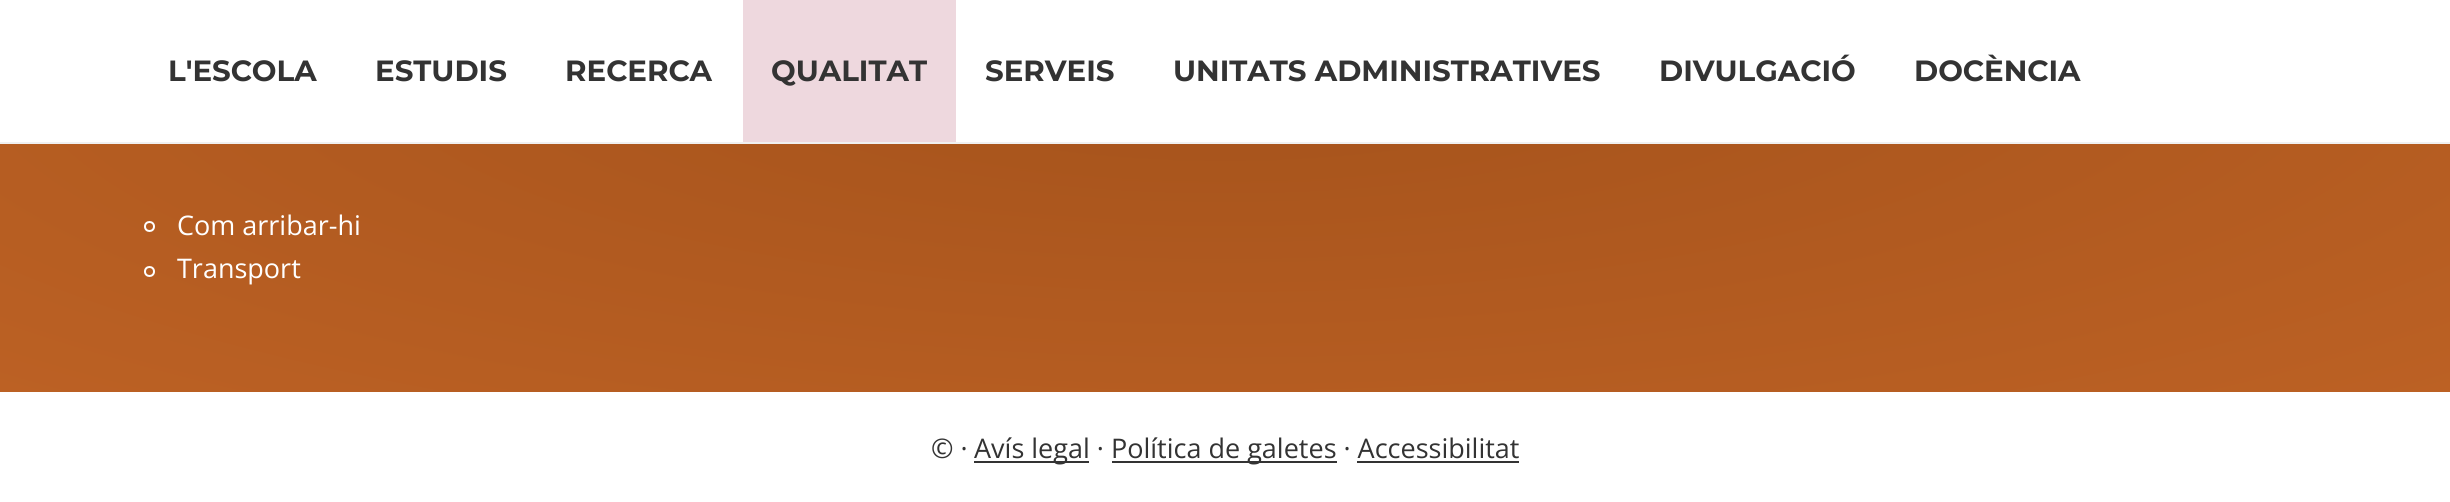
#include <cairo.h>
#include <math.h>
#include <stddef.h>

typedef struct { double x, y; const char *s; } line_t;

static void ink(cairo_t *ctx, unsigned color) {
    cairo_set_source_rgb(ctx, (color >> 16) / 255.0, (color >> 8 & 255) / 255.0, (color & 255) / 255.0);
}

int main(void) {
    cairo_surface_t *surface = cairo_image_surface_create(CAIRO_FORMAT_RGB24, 2450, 502);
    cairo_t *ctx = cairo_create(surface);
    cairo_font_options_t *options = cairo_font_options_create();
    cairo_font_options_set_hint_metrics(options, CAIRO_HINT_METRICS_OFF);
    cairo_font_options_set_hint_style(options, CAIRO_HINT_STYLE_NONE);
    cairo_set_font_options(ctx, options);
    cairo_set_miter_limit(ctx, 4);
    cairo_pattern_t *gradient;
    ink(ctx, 0xFFFFFF);
    cairo_paint(ctx);
    ink(ctx, 0xF0F0F0);
    cairo_rectangle(ctx, 0, 142, 2450, 2);
    cairo_fill(ctx);
    cairo_select_font_face(ctx, "Montserrat", CAIRO_FONT_SLANT_NORMAL, CAIRO_FONT_WEIGHT_BOLD);
    cairo_set_font_size(ctx, 29.25);
    ink(ctx, 0x333333);
    {
        static const line_t items[] = {
            {168, 81, "L'ESCOLA"},
            {375, 81, "ESTUDIS"},
            {565, 81, "RECERCA"},
        };
        for (size_t i = 0; i < sizeof items / sizeof *items; i++) {
            cairo_move_to(ctx, items[i].x, items[i].y);
            cairo_show_text(ctx, items[i].s);
        }
    }
    ink(ctx, 0xEED8DE);
    cairo_rectangle(ctx, 743, 0, 213, 142);
    cairo_fill(ctx);
    ink(ctx, 0x333333);
    {
        static const line_t items[] = {
            {771, 81, "QUALITAT"},
            {985, 81, "SERVEIS"},
            {1173, 81, "UNITATS ADMINISTRATIVES"},
            {1659, 81, "DIVULGACIÓ"},
            {1914, 81, "DOCÈNCIA"},
        };
        for (size_t i = 0; i < sizeof items / sizeof *items; i++) {
            cairo_move_to(ctx, items[i].x, items[i].y);
            cairo_show_text(ctx, items[i].s);
        }
    }
    gradient = cairo_pattern_create_radial(0, 0, 0, 0, 0, 1);
    cairo_pattern_set_matrix(gradient, &(cairo_matrix_t){1.0 / 1733, 0, 0, 1.0 / 484, -1.0 * 1225 / 1733, -1.0 * 50 / 484});
    cairo_pattern_add_color_stop_rgba(gradient, 0, 0.643, 0.322, 0.106, 1);
    cairo_pattern_add_color_stop_rgba(gradient, 1, 0.737, 0.38, 0.141, 1);
    cairo_set_source(ctx, gradient);
    cairo_pattern_destroy(gradient);
    cairo_rectangle(ctx, 0, 144, 2450, 248);
    cairo_fill(ctx);
    cairo_arc(ctx, 149.5, 226.5, 4.5, 0, 2 * M_PI);
    ink(ctx, 0xFFFFFF);
    cairo_stroke(ctx);
    cairo_select_font_face(ctx, "Open Sans", CAIRO_FONT_SLANT_NORMAL, CAIRO_FONT_WEIGHT_NORMAL);
    cairo_set_font_size(ctx, 27);
    cairo_move_to(ctx, 177, 235);
    cairo_show_text(ctx, "Com arribar-hi");
    cairo_new_path(ctx);
    cairo_arc(ctx, 149.5, 271.5, 4.5, 0, 2 * M_PI);
    cairo_stroke(ctx);
    cairo_move_to(ctx, 177, 278);
    cairo_show_text(ctx, "Transport");
    ink(ctx, 0x333333);
    cairo_move_to(ctx, 931, 458);
    cairo_show_text(ctx, "© ·");
    cairo_rectangle(ctx, 974, 461, 115, 2);
    cairo_fill(ctx);
    cairo_move_to(ctx, 974, 458);
    cairo_show_text(ctx, "Avís legal ·");
    cairo_rectangle(ctx, 1112, 461, 225, 2);
    cairo_fill(ctx);
    cairo_move_to(ctx, 1111, 458);
    cairo_show_text(ctx, "Política de galetes · Accessibilitat");
    cairo_rectangle(ctx, 1357, 461, 162, 2);
    cairo_fill(ctx);
    cairo_surface_write_to_png(surface, "image.png");
    cairo_font_options_destroy(options);
    cairo_destroy(ctx);
    cairo_surface_destroy(surface);
    return 0;
}
